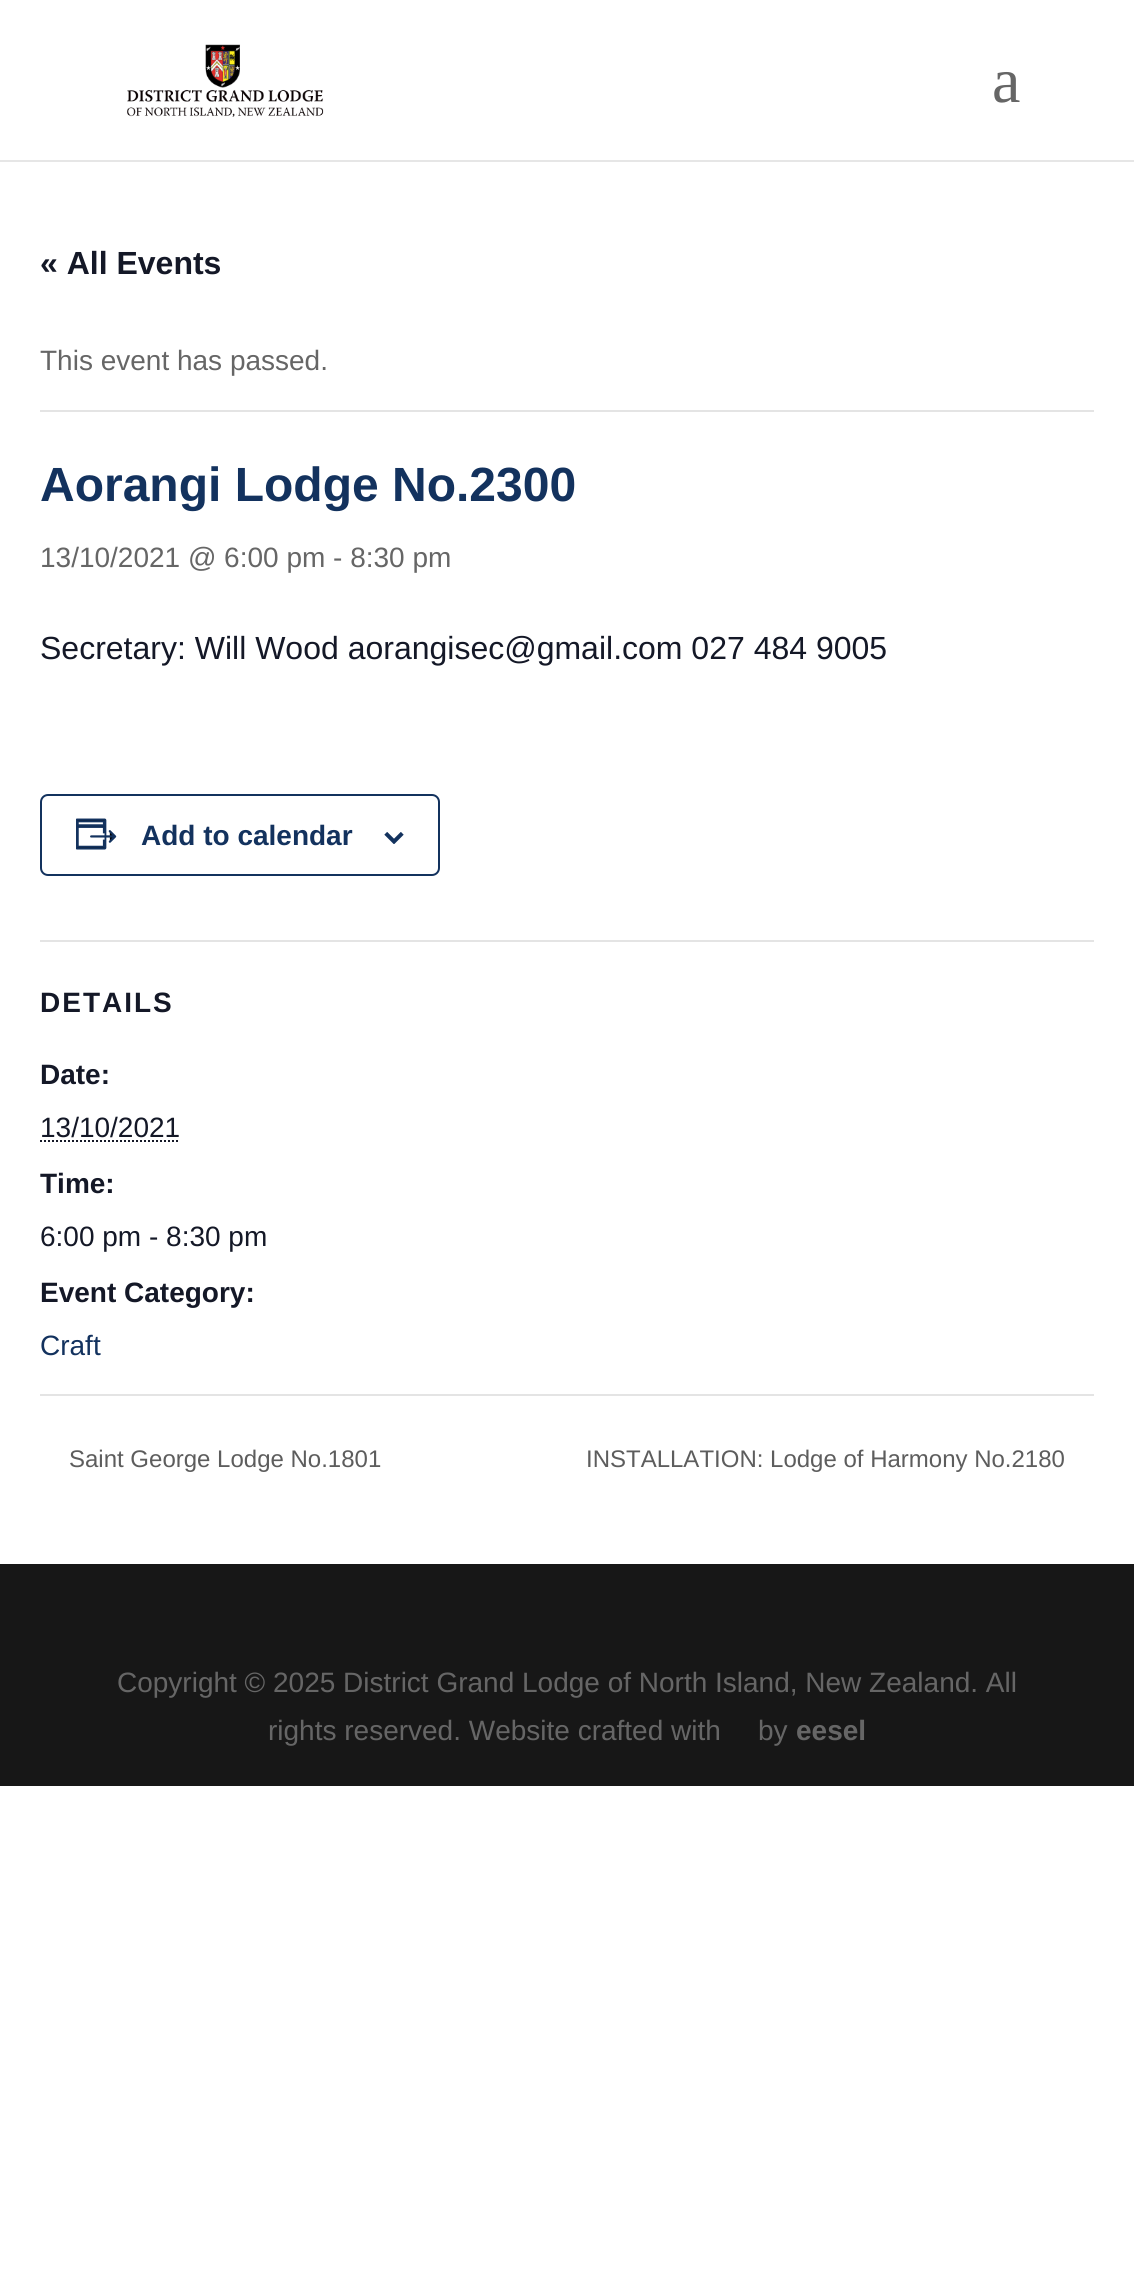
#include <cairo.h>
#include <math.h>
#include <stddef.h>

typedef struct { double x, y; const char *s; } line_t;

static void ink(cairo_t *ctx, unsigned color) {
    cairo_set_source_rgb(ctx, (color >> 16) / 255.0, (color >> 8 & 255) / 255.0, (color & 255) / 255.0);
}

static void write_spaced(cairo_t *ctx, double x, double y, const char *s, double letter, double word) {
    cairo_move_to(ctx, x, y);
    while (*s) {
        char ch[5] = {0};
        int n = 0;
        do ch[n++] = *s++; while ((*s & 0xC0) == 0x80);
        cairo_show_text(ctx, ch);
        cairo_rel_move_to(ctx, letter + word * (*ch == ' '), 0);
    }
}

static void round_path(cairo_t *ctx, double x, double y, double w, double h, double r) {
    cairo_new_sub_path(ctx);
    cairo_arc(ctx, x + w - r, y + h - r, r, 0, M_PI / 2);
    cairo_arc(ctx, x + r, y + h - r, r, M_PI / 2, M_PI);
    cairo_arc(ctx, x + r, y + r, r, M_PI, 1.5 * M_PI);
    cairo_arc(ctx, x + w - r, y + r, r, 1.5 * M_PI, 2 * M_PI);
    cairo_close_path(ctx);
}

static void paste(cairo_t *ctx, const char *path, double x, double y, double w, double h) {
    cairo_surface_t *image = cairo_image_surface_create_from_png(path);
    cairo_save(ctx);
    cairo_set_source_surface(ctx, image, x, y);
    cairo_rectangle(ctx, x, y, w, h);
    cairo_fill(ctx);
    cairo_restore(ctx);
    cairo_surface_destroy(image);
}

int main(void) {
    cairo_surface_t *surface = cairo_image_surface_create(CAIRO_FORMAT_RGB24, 1134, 2292);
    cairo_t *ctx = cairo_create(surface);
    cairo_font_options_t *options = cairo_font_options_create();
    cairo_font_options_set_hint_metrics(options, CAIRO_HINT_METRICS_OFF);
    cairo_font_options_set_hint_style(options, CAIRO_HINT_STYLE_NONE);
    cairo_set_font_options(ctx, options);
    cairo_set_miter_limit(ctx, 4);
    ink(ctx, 0xFFFFFF);
    cairo_paint(ctx);
    ink(ctx, 0xE6E6E6);
    cairo_rectangle(ctx, 0, 160, 1134, 2);
    cairo_fill(ctx);
    paste(ctx, "media/1.png", 127, 44, 197, 73);
    cairo_select_font_face(ctx, "Liberation Serif", CAIRO_FONT_SLANT_NORMAL, CAIRO_FONT_WEIGHT_NORMAL);
    cairo_set_font_size(ctx, 64);
    ink(ctx, 0x666666);
    cairo_move_to(ctx, 992, 102);
    cairo_show_text(ctx, "a");
    cairo_select_font_face(ctx, "Liberation Sans", CAIRO_FONT_SLANT_NORMAL, CAIRO_FONT_WEIGHT_BOLD);
    cairo_set_font_size(ctx, 32);
    ink(ctx, 0x141827);
    cairo_move_to(ctx, 40, 274);
    cairo_show_text(ctx, "« All Events");
    ink(ctx, 0xE4E4E4);
    cairo_rectangle(ctx, 40, 410, 1054, 2);
    cairo_fill(ctx);
    cairo_select_font_face(ctx, "Liberation Sans", CAIRO_FONT_SLANT_NORMAL, CAIRO_FONT_WEIGHT_NORMAL);
    cairo_set_font_size(ctx, 28);
    ink(ctx, 0x666666);
    cairo_move_to(ctx, 40, 370);
    cairo_show_text(ctx, "This event has passed.");
    cairo_select_font_face(ctx, "Liberation Sans", CAIRO_FONT_SLANT_NORMAL, CAIRO_FONT_WEIGHT_BOLD);
    cairo_set_font_size(ctx, 48);
    ink(ctx, 0x13325E);
    cairo_move_to(ctx, 40, 501);
    cairo_show_text(ctx, "Aorangi Lodge No.2300");
    cairo_select_font_face(ctx, "Liberation Sans", CAIRO_FONT_SLANT_NORMAL, CAIRO_FONT_WEIGHT_NORMAL);
    cairo_set_font_size(ctx, 28);
    ink(ctx, 0x666666);
    cairo_move_to(ctx, 40, 567);
    cairo_show_text(ctx, "13/10/2021 @ 6:00 pm - 8:30 pm");
    cairo_set_font_size(ctx, 32);
    ink(ctx, 0x141827);
    cairo_move_to(ctx, 40, 659);
    cairo_show_text(ctx, "Secretary: Will Wood aorangisec@gmail.com 027 484 9005");
    round_path(ctx, 41, 795, 398, 80, 7);
    ink(ctx, 0x13325E);
    cairo_stroke(ctx);
    paste(ctx, "media/2.png", 76, 818, 41, 32);
    cairo_select_font_face(ctx, "Liberation Sans", CAIRO_FONT_SLANT_NORMAL, CAIRO_FONT_WEIGHT_BOLD);
    cairo_set_font_size(ctx, 28);
    cairo_move_to(ctx, 141, 845);
    cairo_show_text(ctx, "Add to calendar");
    paste(ctx, "media/3.png", 384, 832, 20, 12);
    ink(ctx, 0xE4E4E4);
    cairo_rectangle(ctx, 40, 940, 1054, 2);
    cairo_fill(ctx);
    ink(ctx, 0x141827);
    write_spaced(ctx, 40, 1012, "DETAILS", 2, 0);
    cairo_move_to(ctx, 40, 1084);
    cairo_show_text(ctx, "Date:");
    cairo_select_font_face(ctx, "Liberation Sans", CAIRO_FONT_SLANT_NORMAL, CAIRO_FONT_WEIGHT_NORMAL);
    cairo_move_to(ctx, 40, 1137);
    cairo_show_text(ctx, "13/10/2021");
    cairo_new_path(ctx);
    cairo_move_to(ctx, 40, 1141);
    cairo_line_to(ctx, 180, 1141);
    cairo_set_dash(ctx, (double[]){2, 2}, 2, 0);
    cairo_stroke(ctx);
    cairo_select_font_face(ctx, "Liberation Sans", CAIRO_FONT_SLANT_NORMAL, CAIRO_FONT_WEIGHT_BOLD);
    cairo_move_to(ctx, 40, 1193);
    cairo_show_text(ctx, "Time:");
    cairo_select_font_face(ctx, "Liberation Sans", CAIRO_FONT_SLANT_NORMAL, CAIRO_FONT_WEIGHT_NORMAL);
    cairo_move_to(ctx, 40, 1246);
    cairo_show_text(ctx, "6:00 pm - 8:30 pm");
    cairo_select_font_face(ctx, "Liberation Sans", CAIRO_FONT_SLANT_NORMAL, CAIRO_FONT_WEIGHT_BOLD);
    cairo_move_to(ctx, 40, 1302);
    cairo_show_text(ctx, "Event Category:");
    cairo_select_font_face(ctx, "Liberation Sans", CAIRO_FONT_SLANT_NORMAL, CAIRO_FONT_WEIGHT_NORMAL);
    ink(ctx, 0x13325E);
    cairo_move_to(ctx, 40, 1355);
    cairo_show_text(ctx, "Craft");
    ink(ctx, 0xE4E4E4);
    cairo_rectangle(ctx, 40, 1394, 1054, 2);
    cairo_fill(ctx);
    cairo_set_font_size(ctx, 24);
    ink(ctx, 0x5D5D5D);
    cairo_move_to(ctx, 69, 1467);
    cairo_show_text(ctx, "Saint George Lodge No.1801");
    cairo_move_to(ctx, 586, 1467);
    cairo_show_text(ctx, "INSTALLATION: Lodge of Harmony No.2180");
    ink(ctx, 0x171717);
    cairo_rectangle(ctx, 0, 1564, 1134, 222);
    cairo_fill(ctx);
    cairo_set_font_size(ctx, 28);
    ink(ctx, 0x666666);
    {
        static const line_t items[] = {
            {117, 1692, "Copyright © 2025 District Grand Lodge of North Island, New Zealand. All"},
            {268, 1740, "rights reserved. Website crafted with"},
            {758, 1740, "by"},
        };
        for (size_t i = 0; i < sizeof items / sizeof *items; i++) {
            cairo_move_to(ctx, items[i].x, items[i].y);
            cairo_show_text(ctx, items[i].s);
        }
    }
    cairo_select_font_face(ctx, "Liberation Sans", CAIRO_FONT_SLANT_NORMAL, CAIRO_FONT_WEIGHT_BOLD);
    cairo_move_to(ctx, 796, 1740);
    cairo_show_text(ctx, "eesel");
    cairo_surface_write_to_png(surface, "image.png");
    cairo_font_options_destroy(options);
    cairo_destroy(ctx);
    cairo_surface_destroy(surface);
    return 0;
}
